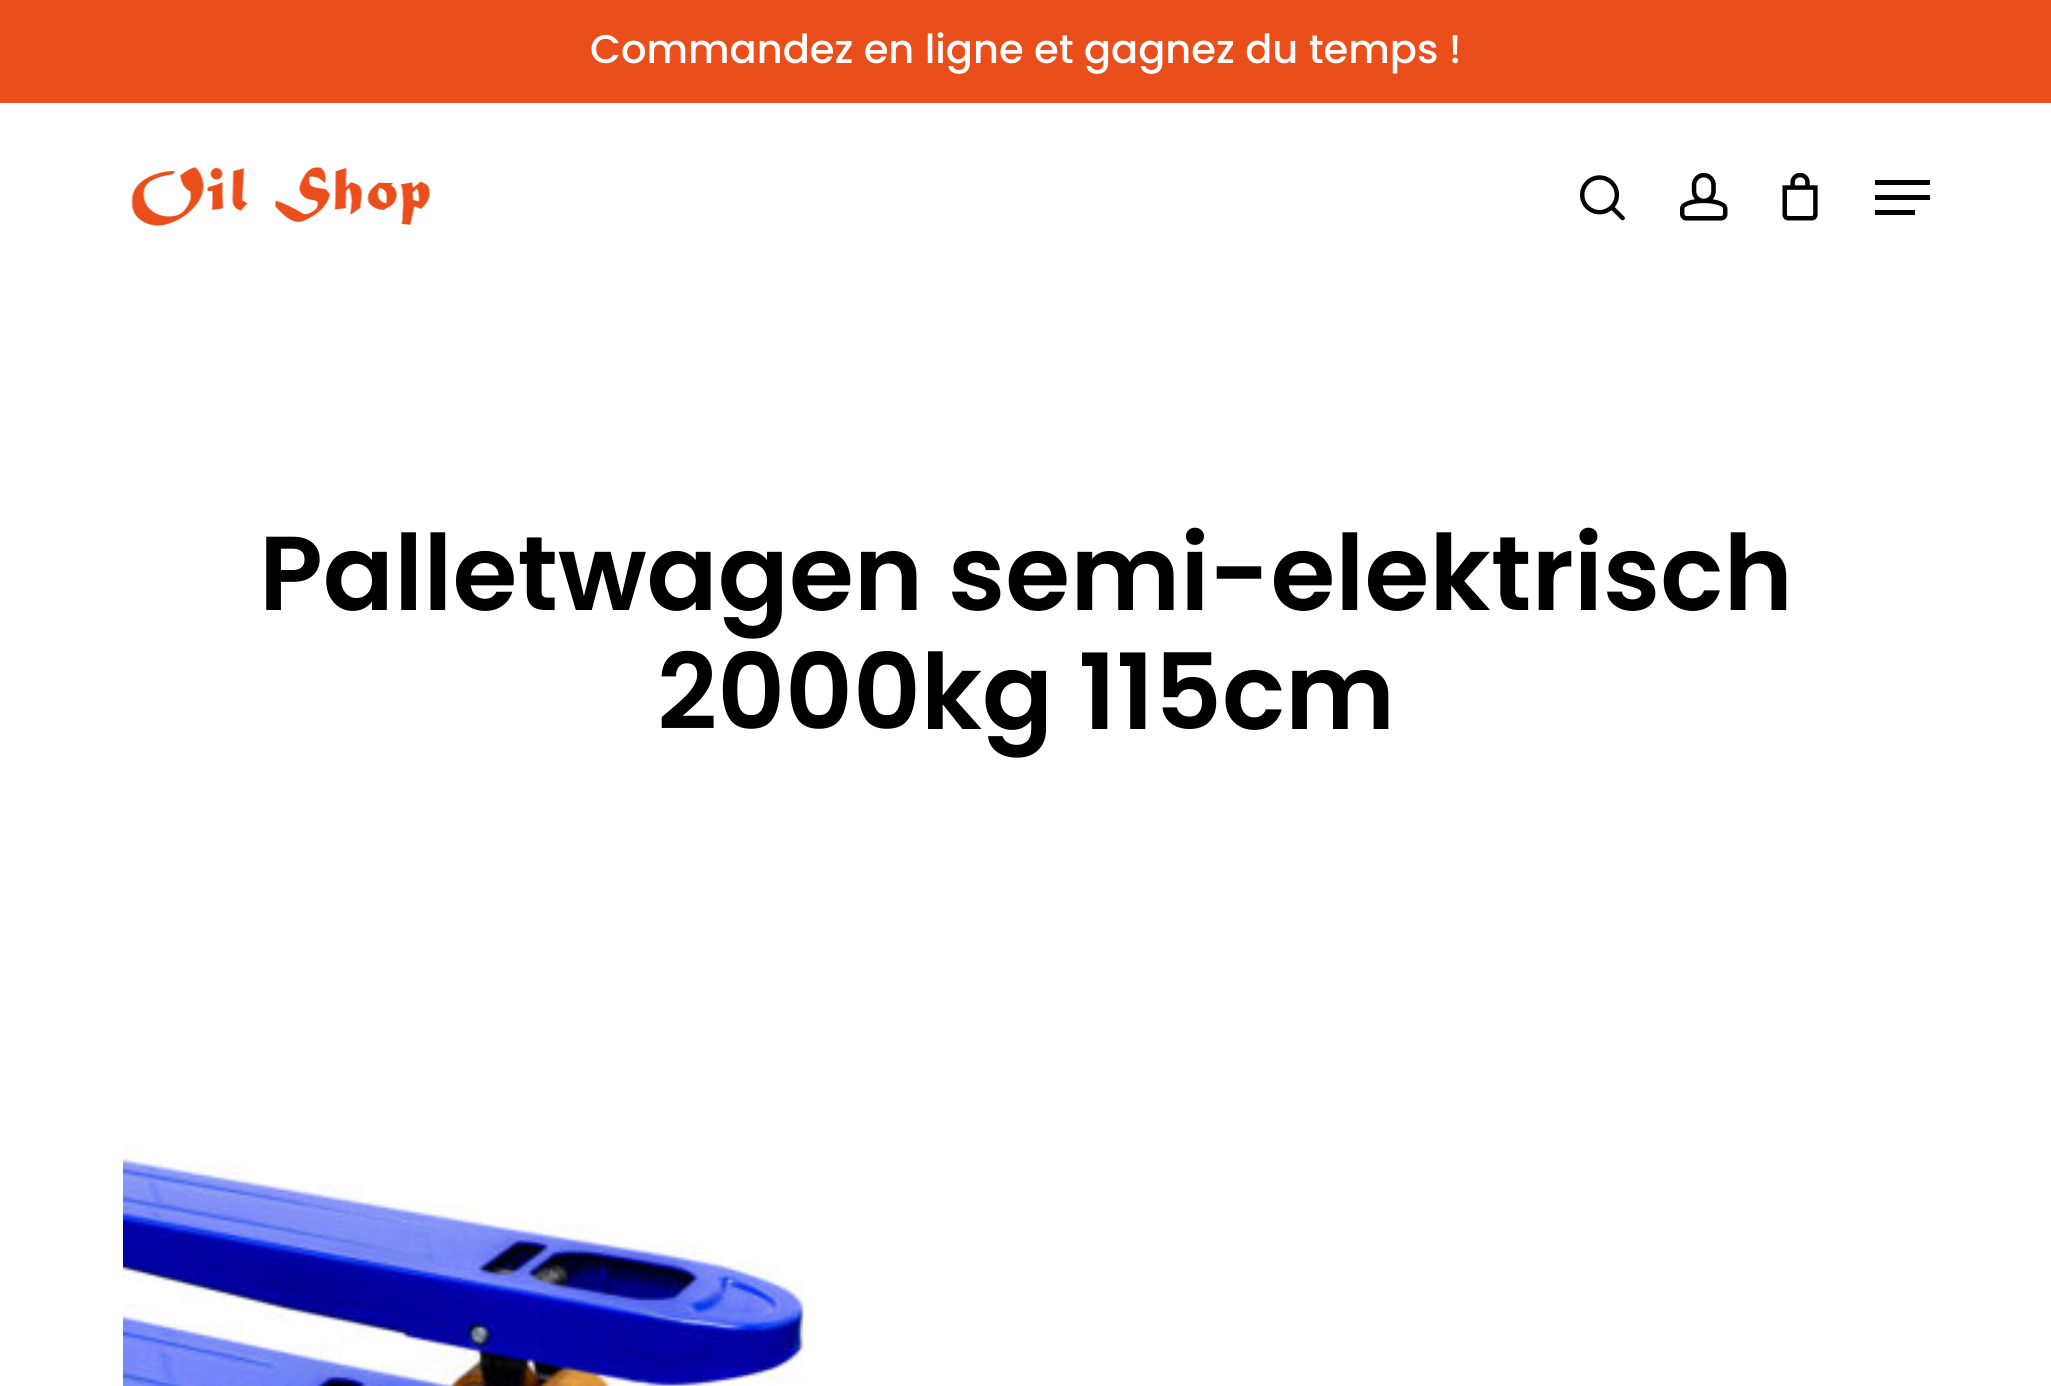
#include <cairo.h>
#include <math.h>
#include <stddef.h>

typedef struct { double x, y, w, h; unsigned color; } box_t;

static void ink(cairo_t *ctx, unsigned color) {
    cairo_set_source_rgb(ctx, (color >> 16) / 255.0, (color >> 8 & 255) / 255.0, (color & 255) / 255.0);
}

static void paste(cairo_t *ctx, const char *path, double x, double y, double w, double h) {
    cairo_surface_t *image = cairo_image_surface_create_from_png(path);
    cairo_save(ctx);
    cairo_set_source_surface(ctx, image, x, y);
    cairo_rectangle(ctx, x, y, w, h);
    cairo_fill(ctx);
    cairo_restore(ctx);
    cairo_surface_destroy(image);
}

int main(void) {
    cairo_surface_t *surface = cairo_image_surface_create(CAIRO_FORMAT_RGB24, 2051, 1386);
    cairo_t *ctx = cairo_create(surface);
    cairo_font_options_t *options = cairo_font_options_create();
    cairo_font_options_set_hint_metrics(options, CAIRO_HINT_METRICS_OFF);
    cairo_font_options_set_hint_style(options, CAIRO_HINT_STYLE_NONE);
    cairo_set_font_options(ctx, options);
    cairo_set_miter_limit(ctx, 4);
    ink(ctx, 0xFFFFFF);
    cairo_paint(ctx);
    ink(ctx, 0xE94E1B);
    cairo_rectangle(ctx, 0, 0, 2051, 103);
    cairo_fill(ctx);
    cairo_select_font_face(ctx, "Poppins Medium", CAIRO_FONT_SLANT_NORMAL, CAIRO_FONT_WEIGHT_NORMAL);
    cairo_set_font_size(ctx, 40);
    ink(ctx, 0xFFFFFF);
    cairo_move_to(ctx, 590, 63);
    cairo_show_text(ctx, "Commandez en ligne et gagnez du temps !");
    paste(ctx, "media/1.png", 131, 167, 299, 59);
    paste(ctx, "media/2.png", 1580, 175, 45, 46);
    paste(ctx, "media/3.png", 1680, 172, 48, 49);
    paste(ctx, "media/4.png", 1782, 172, 36, 49);
    {
        static const box_t items[] = {
            {1875, 180, 55, 5, 0x000000},
            {1875, 210, 40, 5, 0x000000},
            {1875, 195, 55, 5, 0x000000},
        };
        for (size_t i = 0; i < sizeof items / sizeof *items; i++) {
            ink(ctx, items[i].color);
            cairo_rectangle(ctx, items[i].x, items[i].y, items[i].w, items[i].h);
            cairo_fill(ctx);
        }
    }
    cairo_select_font_face(ctx, "Poppins SemiBold", CAIRO_FONT_SLANT_NORMAL, CAIRO_FONT_WEIGHT_NORMAL);
    cairo_set_font_size(ctx, 105);
    cairo_move_to(ctx, 259, 610);
    cairo_show_text(ctx, "Palletwagen semi-elektrisch");
    cairo_move_to(ctx, 657, 729);
    cairo_show_text(ctx, "2000kg 115cm");
    paste(ctx, "media/5.png", 123, 1143, 683, 243);
    cairo_surface_write_to_png(surface, "image.png");
    cairo_font_options_destroy(options);
    cairo_destroy(ctx);
    cairo_surface_destroy(surface);
    return 0;
}
